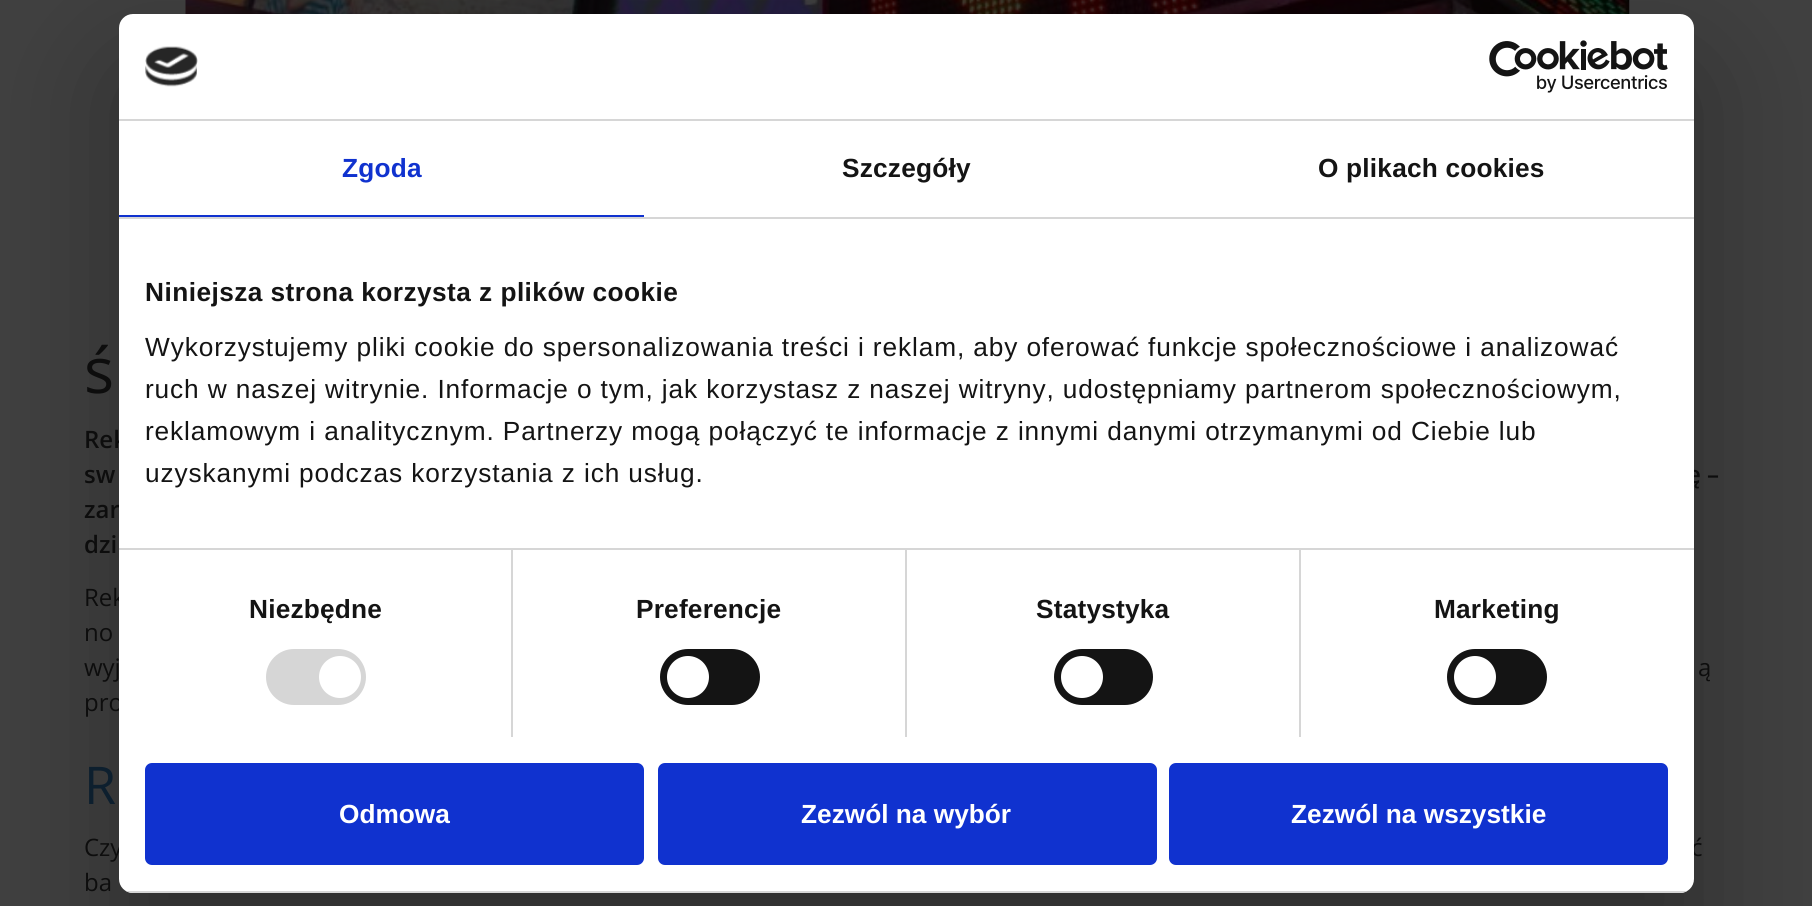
#include <cairo.h>
#include <math.h>
#include <stddef.h>

typedef struct { double x, y; const char *s; } line_t;

static void ink(cairo_t *ctx, unsigned color) {
    cairo_set_source_rgb(ctx, (color >> 16) / 255.0, (color >> 8 & 255) / 255.0, (color & 255) / 255.0);
}

static void write_spaced(cairo_t *ctx, double x, double y, const char *s, double letter, double word) {
    cairo_move_to(ctx, x, y);
    while (*s) {
        char ch[5] = {0};
        int n = 0;
        do ch[n++] = *s++; while ((*s & 0xC0) == 0x80);
        cairo_show_text(ctx, ch);
        cairo_rel_move_to(ctx, letter + word * (*ch == ' '), 0);
    }
}

static void round_path(cairo_t *ctx, double x, double y, double w, double h, double r) {
    cairo_new_sub_path(ctx);
    cairo_arc(ctx, x + w - r, y + h - r, r, 0, M_PI / 2);
    cairo_arc(ctx, x + r, y + h - r, r, M_PI / 2, M_PI);
    cairo_arc(ctx, x + r, y + r, r, M_PI, 1.5 * M_PI);
    cairo_arc(ctx, x + w - r, y + r, r, 1.5 * M_PI, 2 * M_PI);
    cairo_close_path(ctx);
}

static void blur_box(cairo_t *ctx, double x, double y, double w, double h, double r, double blur, double alpha) {
    cairo_push_group_with_content(ctx, CAIRO_CONTENT_ALPHA);
    cairo_set_operator(ctx, CAIRO_OPERATOR_SOURCE);
    for (int i = 15; i >= -15 && fmin(w, h) + blur * i / 3 > 0; i -= 2) {
        double e = blur * i / 6;
        cairo_set_source_rgba(ctx, 0, 0, 0, alpha * erfc((i - 1) / 8.5) / 2);
        round_path(ctx, x - e, y - e, w + 2 * e, h + 2 * e, fmax(0, fmin(r + e + blur * .6, fmin(w, h) / 2 + e)));
        cairo_fill(ctx);
    }
    cairo_pattern_t *soft = cairo_pop_group(ctx);
    cairo_mask(ctx, soft);
    cairo_pattern_destroy(soft);
}

static void paste(cairo_t *ctx, const char *path, double x, double y, double w, double h) {
    cairo_surface_t *image = cairo_image_surface_create_from_png(path);
    cairo_save(ctx);
    cairo_set_source_surface(ctx, image, x, y);
    cairo_rectangle(ctx, x, y, w, h);
    cairo_fill(ctx);
    cairo_restore(ctx);
    cairo_surface_destroy(image);
}

int main(void) {
    cairo_surface_t *surface = cairo_image_surface_create(CAIRO_FORMAT_RGB24, 1812, 906);
    cairo_t *ctx = cairo_create(surface);
    cairo_font_options_t *options = cairo_font_options_create();
    cairo_font_options_set_hint_metrics(options, CAIRO_HINT_METRICS_OFF);
    cairo_font_options_set_hint_style(options, CAIRO_HINT_STYLE_NONE);
    cairo_set_font_options(ctx, options);
    cairo_set_miter_limit(ctx, 4);
    ink(ctx, 0x404040);
    cairo_paint(ctx);
    paste(ctx, "media/3.png", 185, 0, 1445, 14);
    ink(ctx, 0x000000);
    blur_box(ctx, 119, 70, 1575, 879, 14, 59.5, 0.3);
    cairo_select_font_face(ctx, "Open Sans SemiBold", CAIRO_FONT_SLANT_NORMAL, CAIRO_FONT_WEIGHT_NORMAL);
    cairo_set_font_size(ctx, 24);
    ink(ctx, 0x0D0D0D);
    {
        static const line_t items[] = {
            {84, 448, "Rek"},
            {1687, 483, "ę –"},
            {84, 518, "zar"},
        };
        for (size_t i = 0; i < sizeof items / sizeof *items; i++) {
            cairo_move_to(ctx, items[i].x, items[i].y);
            cairo_show_text(ctx, items[i].s);
        }
    }
    cairo_select_font_face(ctx, "Open Sans", CAIRO_FONT_SLANT_NORMAL, CAIRO_FONT_WEIGHT_NORMAL);
    {
        static const line_t items[] = {
            {84, 606, "Rek"},
            {84, 676, "wyj"},
            {84, 711, "pro"},
            {84, 856, "Czy"},
            {1691, 856, "ć"},
        };
        for (size_t i = 0; i < sizeof items / sizeof *items; i++) {
            cairo_move_to(ctx, items[i].x, items[i].y);
            cairo_show_text(ctx, items[i].s);
        }
    }
    ink(ctx, 0xFFFFFF);
    round_path(ctx, 119, 14, 1575, 879, 14);
    cairo_fill(ctx);
    ink(ctx, 0xD6D6D6);
    cairo_rectangle(ctx, 119, 119, 1575, 2);
    cairo_fill(ctx);
    paste(ctx, "media/1.png", 145, 46, 53, 41);
    paste(ctx, "media/2.png", 1489, 40, 179, 53);
    cairo_rectangle(ctx, 119, 217, 1575, 2);
    cairo_fill(ctx);
    ink(ctx, 0x1032CF);
    cairo_rectangle(ctx, 119, 215, 525, 2);
    cairo_fill(ctx);
    cairo_select_font_face(ctx, "Liberation Sans", CAIRO_FONT_SLANT_NORMAL, CAIRO_FONT_WEIGHT_BOLD);
    cairo_set_font_size(ctx, 26.25);
    write_spaced(ctx, 342, 177, "Zgoda", 0.2, 0);
    ink(ctx, 0x141414);
    write_spaced(ctx, 842, 177, "Szczegóły", 0.2, 0);
    write_spaced(ctx, 1318, 177, "O plikach cookies", 0.2, 0);
    ink(ctx, 0xD6D6D6);
    cairo_rectangle(ctx, 119, 548, 1575, 2);
    cairo_fill(ctx);
    ink(ctx, 0x141414);
    write_spaced(ctx, 145, 301, "Niniejsza strona korzysta z plików cookie", 0.45, 0);
    cairo_select_font_face(ctx, "Liberation Sans", CAIRO_FONT_SLANT_NORMAL, CAIRO_FONT_WEIGHT_NORMAL);
    {
        static const line_t items[] = {
            {145, 356, "Wykorzystujemy pliki cookie do spersonalizowania treści i reklam, aby oferować funkcje społecznościowe i analizować"},
            {145, 398, "ruch w naszej witrynie. Informacje o tym, jak korzystasz z naszej witryny, udostępniamy partnerom społecznościowym,"},
            {145, 440, "reklamowym i analitycznym. Partnerzy mogą połączyć te informacje z innymi danymi otrzymanymi od Ciebie lub"},
            {145, 482, "uzyskanymi podczas korzystania z ich usług."},
        };
        for (size_t i = 0; i < sizeof items / sizeof *items; i++) {
            write_spaced(ctx, items[i].x, items[i].y, items[i].s, 0.88, 0);
        }
    }
    ink(ctx, 0xD6D6D6);
    cairo_rectangle(ctx, 511, 550, 2, 187);
    cairo_fill(ctx);
    cairo_select_font_face(ctx, "Liberation Sans", CAIRO_FONT_SLANT_NORMAL, CAIRO_FONT_WEIGHT_BOLD);
    ink(ctx, 0x141414);
    write_spaced(ctx, 249, 618, "Niezbędne", 0.2, 0);
    ink(ctx, 0xD6D6D6);
    round_path(ctx, 266, 649, 100, 56, 28);
    cairo_fill(ctx);
    ink(ctx, 0xFFFFFF);
    cairo_arc(ctx, 340, 677, 21, 0, 2 * M_PI);
    cairo_fill(ctx);
    ink(ctx, 0xD6D6D6);
    cairo_rectangle(ctx, 905, 550, 2, 187);
    cairo_fill(ctx);
    ink(ctx, 0x141414);
    write_spaced(ctx, 636, 618, "Preferencje", 0.2, 0);
    round_path(ctx, 660, 649, 100, 56, 28);
    cairo_fill(ctx);
    ink(ctx, 0xFFFFFF);
    cairo_arc(ctx, 688, 677, 21, 0, 2 * M_PI);
    cairo_fill(ctx);
    ink(ctx, 0xD6D6D6);
    cairo_rectangle(ctx, 1299, 550, 2, 187);
    cairo_fill(ctx);
    ink(ctx, 0x141414);
    write_spaced(ctx, 1036, 618, "Statystyka", 0.2, 0);
    round_path(ctx, 1054, 649, 99, 56, 28);
    cairo_fill(ctx);
    ink(ctx, 0xFFFFFF);
    cairo_arc(ctx, 1082, 677, 21, 0, 2 * M_PI);
    cairo_fill(ctx);
    ink(ctx, 0x141414);
    write_spaced(ctx, 1434, 618, "Marketing", 0.2, 0);
    round_path(ctx, 1447, 649, 100, 56, 28);
    cairo_fill(ctx);
    ink(ctx, 0xFFFFFF);
    cairo_arc(ctx, 1475, 677, 21, 0, 2 * M_PI);
    cairo_fill(ctx);
    cairo_save(ctx);
    round_path(ctx, 119, 14, 1575, 879, 14);
    cairo_clip(ctx);
    ink(ctx, 0xD6D6D6);
    cairo_rectangle(ctx, 119, 891, 1575, 2);
    cairo_fill(ctx);
    cairo_restore(ctx);
    ink(ctx, 0x1032CF);
    round_path(ctx, 147, 765, 495, 98, 5);
    cairo_fill_preserve(ctx);
    cairo_set_line_width(ctx, 4);
    cairo_stroke(ctx);
    ink(ctx, 0xFFFFFF);
    cairo_move_to(ctx, 339, 823);
    cairo_show_text(ctx, "Odmowa");
    ink(ctx, 0x1032CF);
    round_path(ctx, 660, 765, 495, 98, 5);
    cairo_fill_preserve(ctx);
    cairo_stroke(ctx);
    ink(ctx, 0xFFFFFF);
    cairo_move_to(ctx, 801, 823);
    cairo_show_text(ctx, "Zezwól na wybór");
    ink(ctx, 0x1032CF);
    round_path(ctx, 1171, 765, 495, 98, 5);
    cairo_fill_preserve(ctx);
    cairo_stroke(ctx);
    ink(ctx, 0xFFFFFF);
    cairo_move_to(ctx, 1291, 823);
    cairo_show_text(ctx, "Zezwól na wszystkie");
    cairo_select_font_face(ctx, "Open Sans", CAIRO_FONT_SLANT_NORMAL, CAIRO_FONT_WEIGHT_NORMAL);
    cairo_set_font_size(ctx, 63);
    ink(ctx, 0x0D0D0D);
    cairo_move_to(ctx, 84, 393);
    cairo_show_text(ctx, "ś");
    cairo_select_font_face(ctx, "Open Sans SemiBold", CAIRO_FONT_SLANT_NORMAL, CAIRO_FONT_WEIGHT_NORMAL);
    cairo_set_font_size(ctx, 24);
    cairo_move_to(ctx, 84, 483);
    cairo_show_text(ctx, "sw");
    cairo_move_to(ctx, 84, 553);
    cairo_show_text(ctx, "dzi");
    cairo_select_font_face(ctx, "Open Sans", CAIRO_FONT_SLANT_NORMAL, CAIRO_FONT_WEIGHT_NORMAL);
    cairo_move_to(ctx, 84, 641);
    cairo_show_text(ctx, "no");
    cairo_move_to(ctx, 1698, 676);
    cairo_show_text(ctx, "ą");
    cairo_set_font_size(ctx, 52);
    ink(ctx, 0x0D1F2E);
    cairo_move_to(ctx, 84, 804);
    cairo_show_text(ctx, "R");
    cairo_set_font_size(ctx, 24);
    ink(ctx, 0x0D0D0D);
    cairo_move_to(ctx, 84, 891);
    cairo_show_text(ctx, "ba");
    cairo_surface_write_to_png(surface, "image.png");
    cairo_font_options_destroy(options);
    cairo_destroy(ctx);
    cairo_surface_destroy(surface);
    return 0;
}
